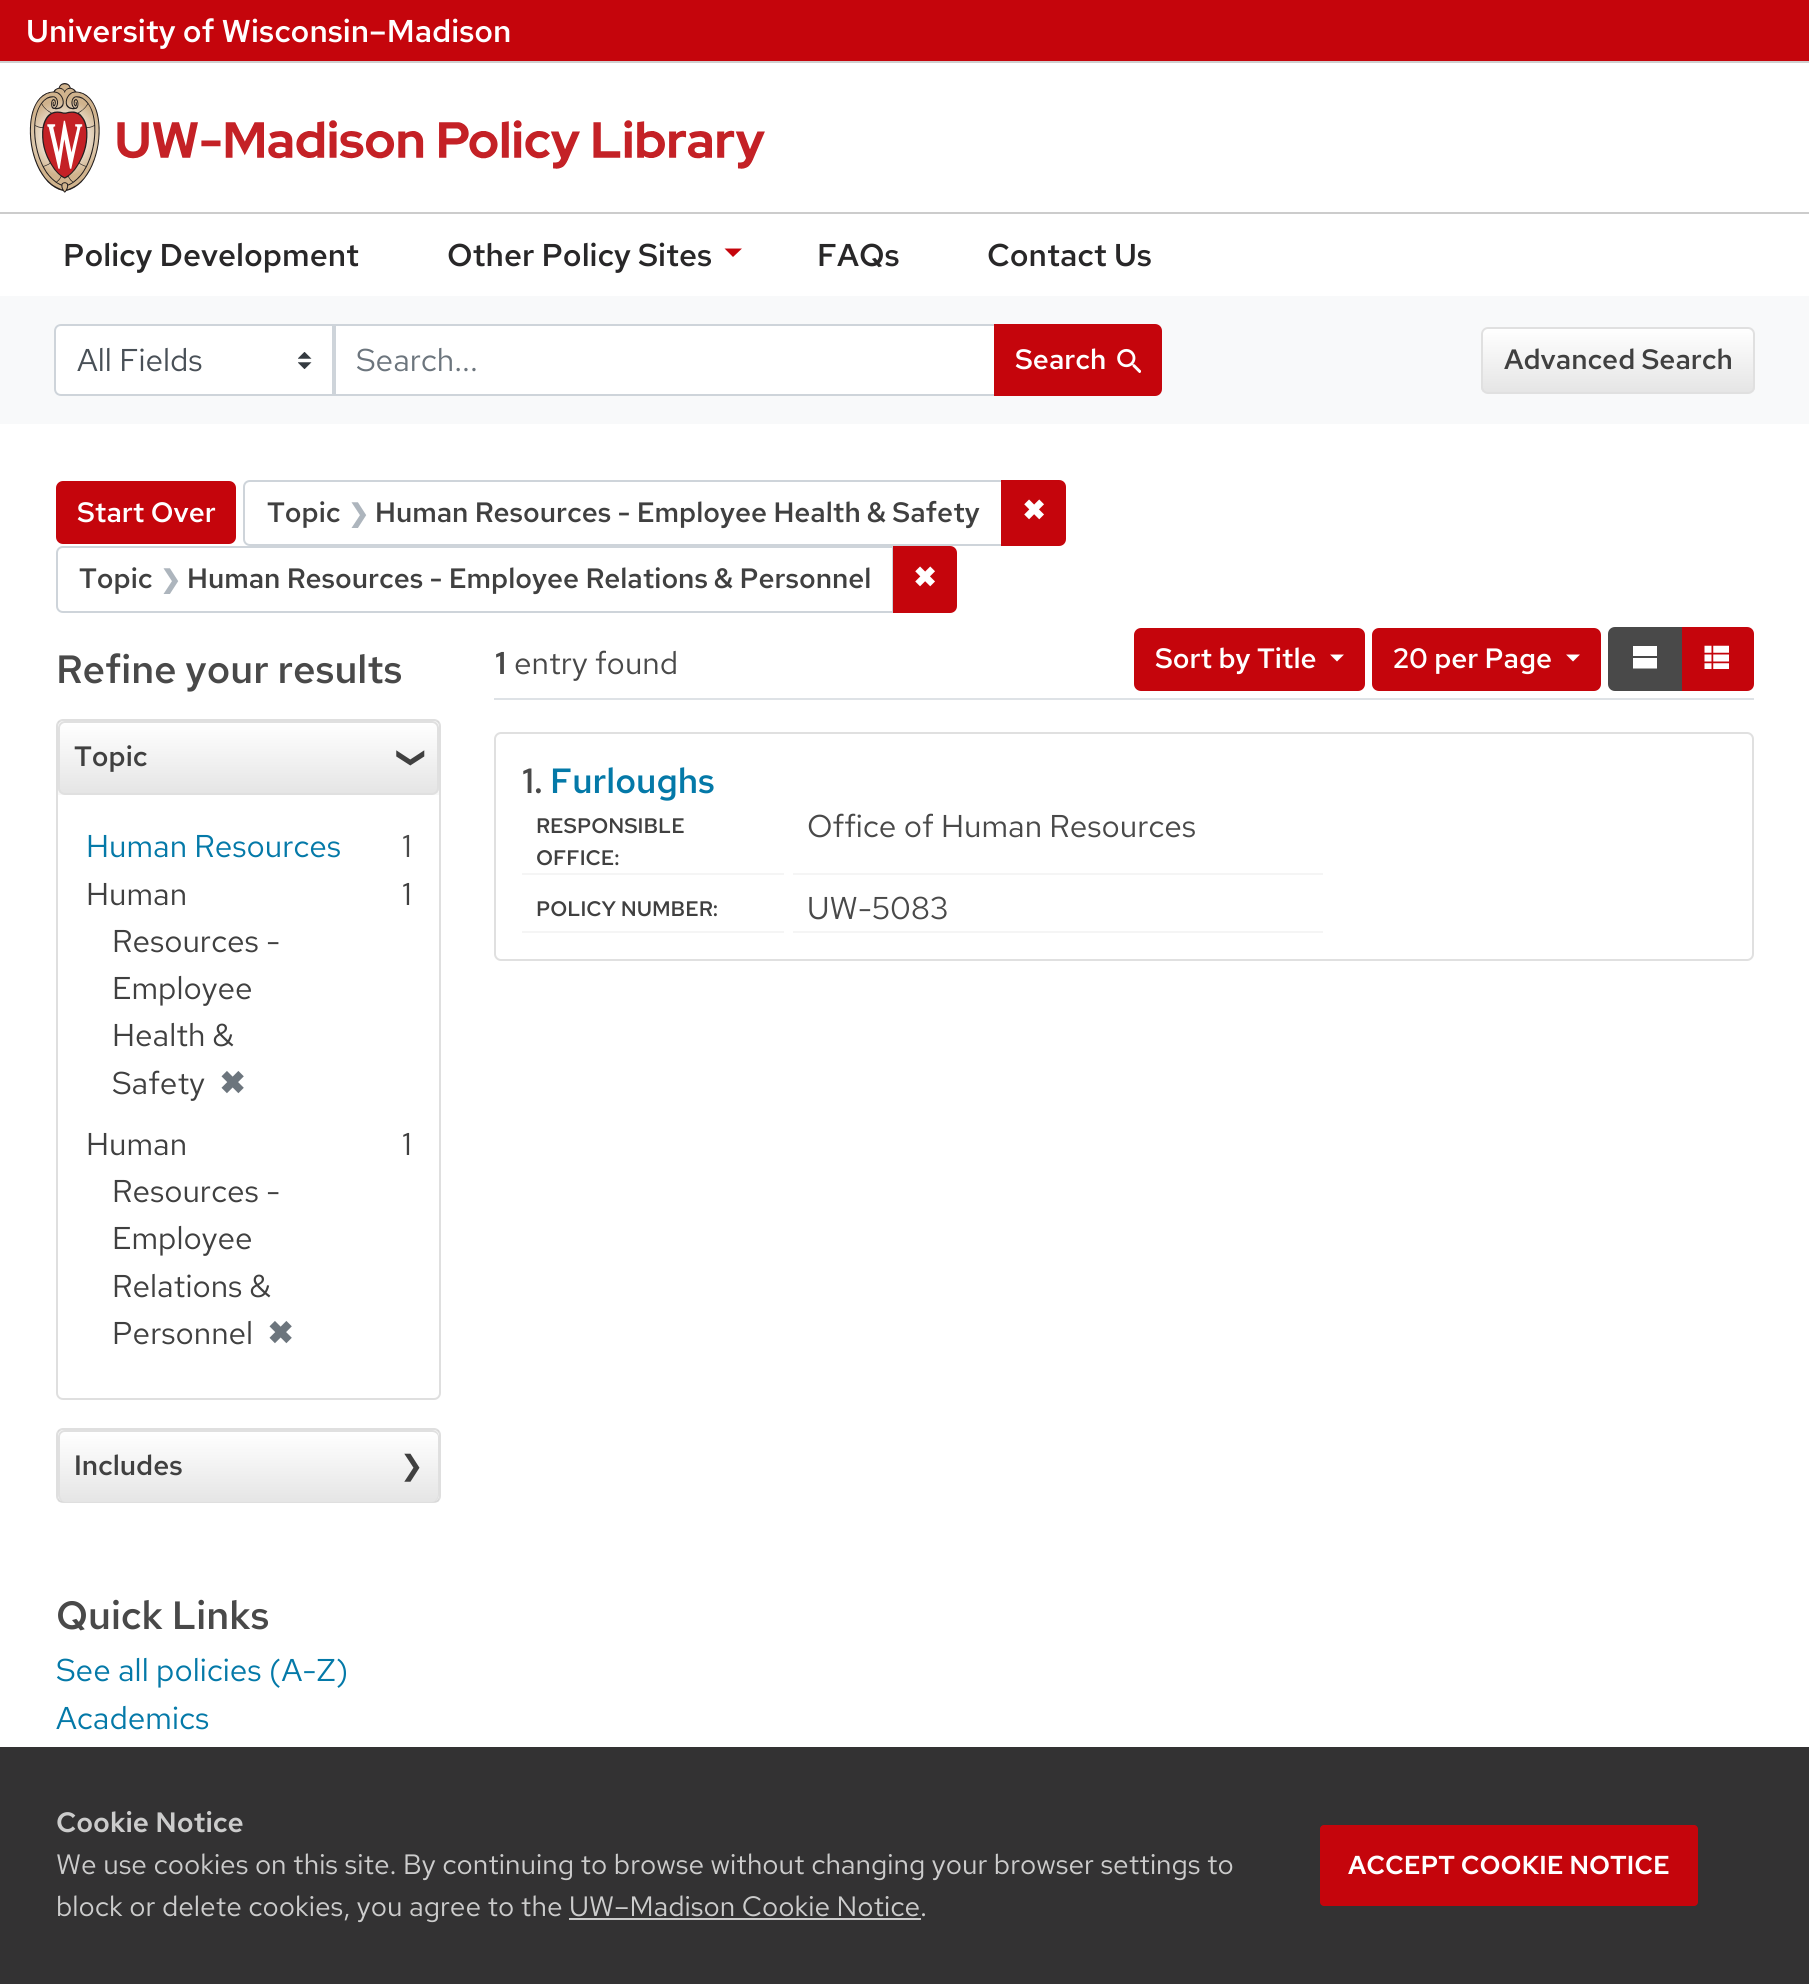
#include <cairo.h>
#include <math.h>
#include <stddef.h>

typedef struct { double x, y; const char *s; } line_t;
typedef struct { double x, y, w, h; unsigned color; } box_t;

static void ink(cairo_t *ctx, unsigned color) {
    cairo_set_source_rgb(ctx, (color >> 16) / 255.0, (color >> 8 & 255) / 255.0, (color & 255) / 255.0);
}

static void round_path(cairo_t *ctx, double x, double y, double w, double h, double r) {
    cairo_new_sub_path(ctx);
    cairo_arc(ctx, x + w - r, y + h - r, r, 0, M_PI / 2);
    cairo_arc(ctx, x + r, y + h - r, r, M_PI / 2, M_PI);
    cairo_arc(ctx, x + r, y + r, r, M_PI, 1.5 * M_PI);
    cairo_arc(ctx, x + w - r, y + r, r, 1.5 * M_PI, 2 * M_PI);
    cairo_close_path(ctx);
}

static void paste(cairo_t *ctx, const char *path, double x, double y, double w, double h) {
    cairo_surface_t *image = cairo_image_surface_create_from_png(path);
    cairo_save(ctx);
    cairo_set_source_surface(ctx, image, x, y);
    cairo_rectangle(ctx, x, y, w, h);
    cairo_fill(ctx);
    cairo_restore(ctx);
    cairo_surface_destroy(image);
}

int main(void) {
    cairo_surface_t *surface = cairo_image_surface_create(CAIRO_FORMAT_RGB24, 1809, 1984);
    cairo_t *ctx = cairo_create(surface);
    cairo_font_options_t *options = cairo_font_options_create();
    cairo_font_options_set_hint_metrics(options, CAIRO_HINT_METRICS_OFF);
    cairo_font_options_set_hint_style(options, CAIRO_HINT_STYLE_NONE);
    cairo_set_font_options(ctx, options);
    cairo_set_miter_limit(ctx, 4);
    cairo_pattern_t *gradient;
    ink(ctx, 0xFFFFFF);
    cairo_paint(ctx);
    {
        static const box_t items[] = {
            {0, 1747, 1809, 237, 0x333233},
            {0, 0, 1809, 61, 0xC5050C},
            {0, 61, 1809, 2, 0xCFCFCF},
        };
        for (size_t i = 0; i < sizeof items / sizeof *items; i++) {
            ink(ctx, items[i].color);
            cairo_rectangle(ctx, items[i].x, items[i].y, items[i].w, items[i].h);
            cairo_fill(ctx);
        }
    }
    cairo_select_font_face(ctx, "Red Hat Text SemiBold", CAIRO_FONT_SLANT_NORMAL, CAIRO_FONT_WEIGHT_NORMAL);
    cairo_set_font_size(ctx, 31.5);
    ink(ctx, 0xFFFFFF);
    cairo_move_to(ctx, 26, 42);
    cairo_show_text(ctx, "University of Wisconsin–Madison");
    ink(ctx, 0xCCCCCC);
    cairo_rectangle(ctx, 0, 212, 1809, 2);
    cairo_fill(ctx);
    paste(ctx, "media/1.png", 29, 83, 736, 110);
    ink(ctx, 0x282728);
    cairo_move_to(ctx, 63, 266);
    cairo_show_text(ctx, "Policy Development");
    cairo_move_to(ctx, 447, 266);
    cairo_show_text(ctx, "Other Policy Sites");
    ink(ctx, 0xC5050C);
    cairo_new_path(ctx);
    cairo_move_to(ctx, 724.5, 248.5);
    cairo_line_to(ctx, 733, 257);
    cairo_line_to(ctx, 742, 248.5);
    cairo_close_path(ctx);
    cairo_fill(ctx);
    ink(ctx, 0x282728);
    cairo_move_to(ctx, 817, 266);
    cairo_show_text(ctx, "FAQs");
    cairo_move_to(ctx, 987, 266);
    cairo_show_text(ctx, "Contact Us");
    ink(ctx, 0xF8F9FA);
    cairo_rectangle(ctx, 0, 296, 1809, 128);
    cairo_fill(ctx);
    ink(ctx, 0xFFFFFF);
    cairo_new_path(ctx);
    cairo_move_to(ctx, 61, 324);
    cairo_line_to(ctx, 334, 324);
    cairo_line_to(ctx, 334, 396);
    cairo_line_to(ctx, 61, 396);
    cairo_curve_to(ctx, 57, 396, 54, 393, 54, 389);
    cairo_line_to(ctx, 54, 331);
    cairo_curve_to(ctx, 54, 327, 57, 324, 61, 324);
    cairo_close_path(ctx);
    cairo_fill(ctx);
    paste(ctx, "media/2.png", 298, 352, 14, 17);
    cairo_new_path(ctx);
    cairo_move_to(ctx, 61, 325);
    cairo_line_to(ctx, 333, 325);
    cairo_line_to(ctx, 333, 395);
    cairo_line_to(ctx, 61, 395);
    cairo_curve_to(ctx, 57.5, 395, 55, 392.5, 55, 389);
    cairo_line_to(ctx, 55, 331);
    cairo_curve_to(ctx, 55, 327.5, 57.5, 325, 61, 325);
    cairo_close_path(ctx);
    ink(ctx, 0xCED4DA);
    cairo_stroke(ctx);
    cairo_select_font_face(ctx, "Red Hat Text", CAIRO_FONT_SLANT_NORMAL, CAIRO_FONT_WEIGHT_NORMAL);
    ink(ctx, 0x495057);
    cairo_move_to(ctx, 77, 371);
    cairo_show_text(ctx, "All Fields");
    ink(ctx, 0xFFFFFF);
    cairo_rectangle(ctx, 335, 325, 660, 70);
    cairo_fill_preserve(ctx);
    ink(ctx, 0xCED4DA);
    cairo_stroke(ctx);
    ink(ctx, 0x6C757D);
    cairo_move_to(ctx, 356, 371);
    cairo_show_text(ctx, "Search...");
    ink(ctx, 0xC5050C);
    cairo_new_path(ctx);
    cairo_move_to(ctx, 994, 324);
    cairo_line_to(ctx, 1155, 324);
    cairo_curve_to(ctx, 1159, 324, 1162, 327, 1162, 331);
    cairo_line_to(ctx, 1162, 389);
    cairo_curve_to(ctx, 1162, 393, 1159, 396, 1155, 396);
    cairo_line_to(ctx, 994, 396);
    cairo_close_path(ctx);
    cairo_fill(ctx);
    cairo_select_font_face(ctx, "Red Hat Text SemiBold", CAIRO_FONT_SLANT_NORMAL, CAIRO_FONT_WEIGHT_NORMAL);
    cairo_set_font_size(ctx, 28);
    ink(ctx, 0xFFFFFF);
    cairo_move_to(ctx, 1015, 369);
    cairo_show_text(ctx, "Search");
    paste(ctx, "media/3.png", 1117, 348, 24, 25);
    cairo_save(ctx);
    round_path(ctx, 1481, 327, 274, 67, 7);
    cairo_clip(ctx);
    gradient = cairo_pattern_create_linear(1618, 329, 1618, 392);
    cairo_pattern_add_color_stop_rgba(gradient, 0, 1, 1, 1, 1);
    cairo_pattern_add_color_stop_rgba(gradient, 1, 0.898, 0.898, 0.898, 1);
    cairo_set_source(ctx, gradient);
    cairo_pattern_destroy(gradient);
    cairo_rectangle(ctx, 1481, 329, 274, 63);
    cairo_fill(ctx);
    cairo_restore(ctx);
    round_path(ctx, 1482, 328, 272, 65, 6);
    ink(ctx, 0xE0E0E0);
    cairo_stroke(ctx);
    ink(ctx, 0x404040);
    cairo_move_to(ctx, 1504, 369);
    cairo_show_text(ctx, "Advanced Search");
    ink(ctx, 0xC5050C);
    round_path(ctx, 56, 481, 180, 63, 7);
    cairo_fill(ctx);
    ink(ctx, 0xFFFFFF);
    cairo_move_to(ctx, 77, 522);
    cairo_show_text(ctx, "Start Over");
    cairo_new_path(ctx);
    cairo_move_to(ctx, 250, 481);
    cairo_line_to(ctx, 1002, 481);
    cairo_line_to(ctx, 1002, 545);
    cairo_line_to(ctx, 250, 545);
    cairo_curve_to(ctx, 246.5, 545, 244, 542.5, 244, 539);
    cairo_line_to(ctx, 244, 487);
    cairo_curve_to(ctx, 244, 483.5, 246.5, 481, 250, 481);
    cairo_close_path(ctx);
    ink(ctx, 0xCED4DA);
    cairo_stroke(ctx);
    ink(ctx, 0x404040);
    cairo_move_to(ctx, 267, 522);
    cairo_show_text(ctx, "Topic");
    cairo_select_font_face(ctx, "DejaVu Sans", CAIRO_FONT_SLANT_NORMAL, CAIRO_FONT_WEIGHT_BOLD);
    cairo_set_font_size(ctx, 25);
    ink(ctx, 0xADB5BD);
    cairo_move_to(ctx, 348, 522);
    cairo_show_text(ctx, "❯");
    cairo_select_font_face(ctx, "Red Hat Text SemiBold", CAIRO_FONT_SLANT_NORMAL, CAIRO_FONT_WEIGHT_NORMAL);
    cairo_set_font_size(ctx, 28);
    ink(ctx, 0x404040);
    cairo_move_to(ctx, 375, 522);
    cairo_show_text(ctx, "Human Resources - Employee Health & Safety");
    ink(ctx, 0xC5050C);
    cairo_new_path(ctx);
    cairo_move_to(ctx, 1001, 480);
    cairo_line_to(ctx, 1059, 480);
    cairo_curve_to(ctx, 1063, 480, 1066, 483, 1066, 487);
    cairo_line_to(ctx, 1066, 539);
    cairo_curve_to(ctx, 1066, 543, 1063, 546, 1059, 546);
    cairo_line_to(ctx, 1001, 546);
    cairo_close_path(ctx);
    cairo_fill(ctx);
    cairo_select_font_face(ctx, "DejaVu Sans", CAIRO_FONT_SLANT_NORMAL, CAIRO_FONT_WEIGHT_BOLD);
    ink(ctx, 0xFFFFFF);
    cairo_move_to(ctx, 1022, 520);
    cairo_show_text(ctx, "✖");
    cairo_new_path(ctx);
    cairo_move_to(ctx, 63, 547);
    cairo_line_to(ctx, 893, 547);
    cairo_line_to(ctx, 893, 612);
    cairo_line_to(ctx, 63, 612);
    cairo_curve_to(ctx, 59.5, 612, 57, 609.5, 57, 606);
    cairo_line_to(ctx, 57, 553);
    cairo_curve_to(ctx, 57, 549.5, 59.5, 547, 63, 547);
    cairo_close_path(ctx);
    ink(ctx, 0xCED4DA);
    cairo_stroke(ctx);
    cairo_select_font_face(ctx, "Red Hat Text SemiBold", CAIRO_FONT_SLANT_NORMAL, CAIRO_FONT_WEIGHT_NORMAL);
    ink(ctx, 0x404040);
    cairo_move_to(ctx, 79, 588);
    cairo_show_text(ctx, "Topic");
    cairo_select_font_face(ctx, "DejaVu Sans", CAIRO_FONT_SLANT_NORMAL, CAIRO_FONT_WEIGHT_BOLD);
    cairo_set_font_size(ctx, 25);
    ink(ctx, 0xADB5BD);
    cairo_move_to(ctx, 160, 588);
    cairo_show_text(ctx, "❯");
    cairo_select_font_face(ctx, "Red Hat Text SemiBold", CAIRO_FONT_SLANT_NORMAL, CAIRO_FONT_WEIGHT_NORMAL);
    cairo_set_font_size(ctx, 28);
    ink(ctx, 0x404040);
    cairo_move_to(ctx, 187, 588);
    cairo_show_text(ctx, "Human Resources - Employee Relations & Personnel");
    ink(ctx, 0xC5050C);
    cairo_new_path(ctx);
    cairo_move_to(ctx, 893, 546);
    cairo_line_to(ctx, 950, 546);
    cairo_curve_to(ctx, 954, 546, 957, 549, 957, 553);
    cairo_line_to(ctx, 957, 606);
    cairo_curve_to(ctx, 957, 610, 954, 613, 950, 613);
    cairo_line_to(ctx, 893, 613);
    cairo_close_path(ctx);
    cairo_fill(ctx);
    cairo_select_font_face(ctx, "DejaVu Sans", CAIRO_FONT_SLANT_NORMAL, CAIRO_FONT_WEIGHT_BOLD);
    ink(ctx, 0xFFFFFF);
    cairo_move_to(ctx, 913, 587);
    cairo_show_text(ctx, "✖");
    cairo_select_font_face(ctx, "Red Hat Text Medium", CAIRO_FONT_SLANT_NORMAL, CAIRO_FONT_WEIGHT_NORMAL);
    cairo_set_font_size(ctx, 39.4);
    ink(ctx, 0x494949);
    cairo_move_to(ctx, 56, 683);
    cairo_show_text(ctx, "Refine your results");
    round_path(ctx, 57, 720, 383, 679, 6);
    ink(ctx, 0xDFDFDF);
    cairo_stroke(ctx);
    cairo_set_source_rgba(ctx, 0, 0, 0, 0.03);
    cairo_rectangle(ctx, 58, 721, 381, 74);
    cairo_fill(ctx);
    cairo_save(ctx);
    round_path(ctx, 58, 721, 381, 74, 7);
    cairo_clip(ctx);
    gradient = cairo_pattern_create_linear(249, 723, 249, 793);
    cairo_pattern_add_color_stop_rgba(gradient, 0, 1, 1, 1, 1);
    cairo_pattern_add_color_stop_rgba(gradient, 1, 0.898, 0.898, 0.898, 1);
    cairo_set_source(ctx, gradient);
    cairo_pattern_destroy(gradient);
    cairo_rectangle(ctx, 58, 723, 381, 70);
    cairo_fill(ctx);
    cairo_restore(ctx);
    round_path(ctx, 59, 722, 379, 72, 6);
    ink(ctx, 0xE0E0E0);
    cairo_stroke(ctx);
    cairo_set_font_size(ctx, 28);
    ink(ctx, 0x404040);
    cairo_move_to(ctx, 74, 766);
    cairo_show_text(ctx, "Topic");
    cairo_select_font_face(ctx, "DejaVu Sans", CAIRO_FONT_SLANT_NORMAL, CAIRO_FONT_WEIGHT_NORMAL);
    cairo_save(ctx);
    cairo_translate(ctx, 403, 746);
    cairo_rotate(ctx, 90 * M_PI / 180);
    cairo_move_to(ctx, 0, 0);
    cairo_show_text(ctx, "❯");
    cairo_restore(ctx);
    cairo_select_font_face(ctx, "Red Hat Text", CAIRO_FONT_SLANT_NORMAL, CAIRO_FONT_WEIGHT_NORMAL);
    cairo_set_font_size(ctx, 31.5);
    ink(ctx, 0x0479A8);
    cairo_move_to(ctx, 86, 857);
    cairo_show_text(ctx, "Human Resources");
    ink(ctx, 0x494949);
    cairo_move_to(ctx, 402, 857);
    cairo_show_text(ctx, "1");
    ink(ctx, 0x404040);
    {
        static const line_t items[] = {
            {86, 905, "Human"},
            {112, 952, "Resources -"},
            {112, 999, "Employee"},
            {112, 1046, "Health &"},
            {112, 1094, "Safety"},
        };
        for (size_t i = 0; i < sizeof items / sizeof *items; i++) {
            cairo_move_to(ctx, items[i].x, items[i].y);
            cairo_show_text(ctx, items[i].s);
        }
    }
    cairo_select_font_face(ctx, "DejaVu Sans", CAIRO_FONT_SLANT_NORMAL, CAIRO_FONT_WEIGHT_BOLD);
    ink(ctx, 0x6C757D);
    cairo_move_to(ctx, 219, 1094);
    cairo_show_text(ctx, "✖");
    cairo_select_font_face(ctx, "Red Hat Text", CAIRO_FONT_SLANT_NORMAL, CAIRO_FONT_WEIGHT_NORMAL);
    ink(ctx, 0x404040);
    {
        static const line_t items[] = {
            {402, 905, "1"},
            {86, 1155, "Human"},
            {112, 1202, "Resources -"},
            {112, 1249, "Employee"},
            {112, 1297, "Relations &"},
            {112, 1344, "Personnel"},
        };
        for (size_t i = 0; i < sizeof items / sizeof *items; i++) {
            cairo_move_to(ctx, items[i].x, items[i].y);
            cairo_show_text(ctx, items[i].s);
        }
    }
    cairo_select_font_face(ctx, "DejaVu Sans", CAIRO_FONT_SLANT_NORMAL, CAIRO_FONT_WEIGHT_BOLD);
    ink(ctx, 0x6C757D);
    cairo_move_to(ctx, 267, 1344);
    cairo_show_text(ctx, "✖");
    cairo_select_font_face(ctx, "Red Hat Text", CAIRO_FONT_SLANT_NORMAL, CAIRO_FONT_WEIGHT_NORMAL);
    ink(ctx, 0x404040);
    cairo_move_to(ctx, 402, 1155);
    cairo_show_text(ctx, "1");
    round_path(ctx, 57, 1429, 383, 73, 6);
    ink(ctx, 0xDFDFDF);
    cairo_stroke(ctx);
    cairo_set_source_rgba(ctx, 0, 0, 0, 0.03);
    cairo_rectangle(ctx, 58, 1430, 381, 72);
    cairo_fill(ctx);
    cairo_save(ctx);
    round_path(ctx, 58, 1430, 381, 72, 7);
    cairo_clip(ctx);
    gradient = cairo_pattern_create_linear(249, 1432, 249, 1502);
    cairo_pattern_add_color_stop_rgba(gradient, 0, 1, 1, 1, 1);
    cairo_pattern_add_color_stop_rgba(gradient, 1, 0.898, 0.898, 0.898, 1);
    cairo_set_source(ctx, gradient);
    cairo_pattern_destroy(gradient);
    cairo_new_path(ctx);
    cairo_move_to(ctx, 58, 1432);
    cairo_line_to(ctx, 439, 1432);
    cairo_line_to(ctx, 439, 1495);
    cairo_curve_to(ctx, 439, 1499, 436, 1502, 432, 1502);
    cairo_line_to(ctx, 65, 1502);
    cairo_curve_to(ctx, 61, 1502, 58, 1499, 58, 1495);
    cairo_close_path(ctx);
    cairo_fill(ctx);
    cairo_restore(ctx);
    ink(ctx, 0xE0E0E0);
    cairo_set_fill_rule(ctx, CAIRO_FILL_RULE_EVEN_ODD);
    cairo_new_path(ctx);
    cairo_move_to(ctx, 65, 1430);
    cairo_line_to(ctx, 432, 1430);
    cairo_curve_to(ctx, 436, 1430, 439, 1433, 439, 1437);
    cairo_line_to(ctx, 439, 1494);
    cairo_curve_to(ctx, 439, 1498, 436, 1502, 432, 1502);
    cairo_line_to(ctx, 65, 1502);
    cairo_curve_to(ctx, 61, 1502, 58, 1498, 58, 1494);
    cairo_line_to(ctx, 58, 1437);
    cairo_curve_to(ctx, 58, 1433, 61, 1430, 65, 1430);
    cairo_close_path(ctx);
    cairo_move_to(ctx, 65, 1432);
    cairo_line_to(ctx, 432, 1432);
    cairo_curve_to(ctx, 435, 1432, 438, 1434, 438, 1437);
    cairo_line_to(ctx, 438, 1494);
    cairo_curve_to(ctx, 438, 1498, 435, 1502, 432, 1502);
    cairo_line_to(ctx, 65, 1502);
    cairo_curve_to(ctx, 62, 1502, 60, 1498, 60, 1494);
    cairo_line_to(ctx, 60, 1437);
    cairo_curve_to(ctx, 60, 1434, 62, 1432, 65, 1432);
    cairo_close_path(ctx);
    cairo_fill(ctx);
    cairo_select_font_face(ctx, "Red Hat Text Medium", CAIRO_FONT_SLANT_NORMAL, CAIRO_FONT_WEIGHT_NORMAL);
    cairo_set_font_size(ctx, 28);
    ink(ctx, 0x404040);
    cairo_move_to(ctx, 74, 1475);
    cairo_show_text(ctx, "Includes");
    cairo_select_font_face(ctx, "DejaVu Sans", CAIRO_FONT_SLANT_NORMAL, CAIRO_FONT_WEIGHT_NORMAL);
    cairo_move_to(ctx, 400, 1475);
    cairo_show_text(ctx, "❯");
    cairo_select_font_face(ctx, "Red Hat Text Medium", CAIRO_FONT_SLANT_NORMAL, CAIRO_FONT_WEIGHT_NORMAL);
    cairo_set_font_size(ctx, 39.4);
    ink(ctx, 0x494949);
    cairo_move_to(ctx, 56, 1629);
    cairo_show_text(ctx, "Quick Links");
    cairo_select_font_face(ctx, "Red Hat Text", CAIRO_FONT_SLANT_NORMAL, CAIRO_FONT_WEIGHT_NORMAL);
    cairo_set_font_size(ctx, 31.5);
    ink(ctx, 0x0479A8);
    cairo_move_to(ctx, 56, 1681);
    cairo_show_text(ctx, "See all policies (A-Z)");
    cairo_move_to(ctx, 56, 1729);
    cairo_show_text(ctx, "Academics");
    ink(ctx, 0xDEE2E6);
    cairo_rectangle(ctx, 494, 698, 1260, 2);
    cairo_fill(ctx);
    cairo_select_font_face(ctx, "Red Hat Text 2 SemiBold", CAIRO_FONT_SLANT_NORMAL, CAIRO_FONT_WEIGHT_NORMAL);
    ink(ctx, 0x494949);
    cairo_move_to(ctx, 495, 674);
    cairo_show_text(ctx, "1");
    cairo_select_font_face(ctx, "Red Hat Text", CAIRO_FONT_SLANT_NORMAL, CAIRO_FONT_WEIGHT_NORMAL);
    cairo_move_to(ctx, 514, 674);
    cairo_show_text(ctx, "entry found");
    ink(ctx, 0xC5050C);
    round_path(ctx, 1134, 628, 231, 63, 7);
    cairo_fill(ctx);
    cairo_select_font_face(ctx, "Red Hat Text SemiBold", CAIRO_FONT_SLANT_NORMAL, CAIRO_FONT_WEIGHT_NORMAL);
    cairo_set_font_size(ctx, 28);
    ink(ctx, 0xFFFFFF);
    cairo_move_to(ctx, 1155, 668);
    cairo_show_text(ctx, "Sort by Title");
    cairo_set_fill_rule(ctx, CAIRO_FILL_RULE_WINDING);
    cairo_new_path(ctx);
    cairo_move_to(ctx, 1330, 654.5);
    cairo_line_to(ctx, 1344, 654.5);
    cairo_line_to(ctx, 1337, 661.5);
    cairo_close_path(ctx);
    cairo_fill(ctx);
    ink(ctx, 0xC5050C);
    round_path(ctx, 1372, 628, 229, 63, 7);
    cairo_fill(ctx);
    ink(ctx, 0xFFFFFF);
    cairo_move_to(ctx, 1393, 668);
    cairo_show_text(ctx, "20 per Page");
    cairo_new_path(ctx);
    cairo_move_to(ctx, 1566, 654.5);
    cairo_line_to(ctx, 1580, 654.5);
    cairo_line_to(ctx, 1573, 661.5);
    cairo_close_path(ctx);
    cairo_fill(ctx);
    ink(ctx, 0xC5050C);
    cairo_new_path(ctx);
    cairo_move_to(ctx, 1680, 627);
    cairo_line_to(ctx, 1747, 627);
    cairo_curve_to(ctx, 1751, 627, 1754, 630, 1754, 634);
    cairo_line_to(ctx, 1754, 684);
    cairo_curve_to(ctx, 1754, 688, 1751, 691, 1747, 691);
    cairo_line_to(ctx, 1680, 691);
    cairo_close_path(ctx);
    cairo_fill(ctx);
    ink(ctx, 0x494949);
    cairo_new_path(ctx);
    cairo_move_to(ctx, 1615, 627);
    cairo_line_to(ctx, 1682, 627);
    cairo_line_to(ctx, 1682, 691);
    cairo_line_to(ctx, 1615, 691);
    cairo_curve_to(ctx, 1611, 691, 1608, 688, 1608, 684);
    cairo_line_to(ctx, 1608, 634);
    cairo_curve_to(ctx, 1608, 630, 1611, 627, 1615, 627);
    cairo_close_path(ctx);
    cairo_fill(ctx);
    cairo_save(ctx);
    cairo_rectangle(ctx, 1626, 637, 31, 32);
    cairo_clip(ctx);
    ink(ctx, 0xFFFFFF);
    cairo_new_path(ctx);
    cairo_move_to(ctx, 1633, 668.5);
    cairo_line_to(ctx, 1662.5, 668.5);
    cairo_line_to(ctx, 1662.5, 658);
    cairo_line_to(ctx, 1633, 658);
    cairo_close_path(ctx);
    cairo_move_to(ctx, 1633, 646);
    cairo_line_to(ctx, 1633, 656);
    cairo_line_to(ctx, 1662.5, 656);
    cairo_line_to(ctx, 1662.5, 646);
    cairo_close_path(ctx);
    cairo_fill(ctx);
    cairo_restore(ctx);
    paste(ctx, "media/4.png", 1704, 645, 25, 24);
    round_path(ctx, 495, 733, 1258, 227, 6);
    ink(ctx, 0xE0E0E0);
    cairo_stroke(ctx);
    cairo_select_font_face(ctx, "Red Hat Text Medium", CAIRO_FONT_SLANT_NORMAL, CAIRO_FONT_WEIGHT_NORMAL);
    cairo_set_font_size(ctx, 35);
    ink(ctx, 0x494949);
    cairo_move_to(ctx, 522, 793);
    cairo_show_text(ctx, "1.");
    ink(ctx, 0x0479A8);
    cairo_move_to(ctx, 550, 793);
    cairo_show_text(ctx, "Furloughs");
    ink(ctx, 0xF5F5F5);
    cairo_rectangle(ctx, 522, 873, 262, 2);
    cairo_fill(ctx);
    cairo_select_font_face(ctx, "Red Hat Text SemiBold", CAIRO_FONT_SLANT_NORMAL, CAIRO_FONT_WEIGHT_NORMAL);
    cairo_set_font_size(ctx, 21);
    ink(ctx, 0x404040);
    cairo_move_to(ctx, 536, 833);
    cairo_show_text(ctx, "RESPONSIBLE");
    cairo_move_to(ctx, 536, 865);
    cairo_show_text(ctx, "OFFICE:");
    ink(ctx, 0xF5F5F5);
    cairo_rectangle(ctx, 793, 873, 530, 2);
    cairo_fill(ctx);
    cairo_select_font_face(ctx, "Red Hat Text", CAIRO_FONT_SLANT_NORMAL, CAIRO_FONT_WEIGHT_NORMAL);
    cairo_set_font_size(ctx, 31.5);
    ink(ctx, 0x494949);
    cairo_move_to(ctx, 807, 837);
    cairo_show_text(ctx, "Office of Human Resources");
    ink(ctx, 0xF5F5F5);
    cairo_rectangle(ctx, 522, 931, 262, 2);
    cairo_fill(ctx);
    cairo_select_font_face(ctx, "Red Hat Text SemiBold", CAIRO_FONT_SLANT_NORMAL, CAIRO_FONT_WEIGHT_NORMAL);
    cairo_set_font_size(ctx, 21);
    ink(ctx, 0x404040);
    cairo_move_to(ctx, 536, 916);
    cairo_show_text(ctx, "POLICY NUMBER:");
    ink(ctx, 0xF5F5F5);
    cairo_rectangle(ctx, 793, 931, 530, 2);
    cairo_fill(ctx);
    cairo_select_font_face(ctx, "Red Hat Text", CAIRO_FONT_SLANT_NORMAL, CAIRO_FONT_WEIGHT_NORMAL);
    cairo_set_font_size(ctx, 31.5);
    ink(ctx, 0x494949);
    cairo_move_to(ctx, 807, 919);
    cairo_show_text(ctx, "UW-5083");
    cairo_select_font_face(ctx, "Red Hat Text 2 SemiBold", CAIRO_FONT_SLANT_NORMAL, CAIRO_FONT_WEIGHT_NORMAL);
    cairo_set_font_size(ctx, 28);
    ink(ctx, 0xCCCCCC);
    cairo_move_to(ctx, 56, 1832);
    cairo_show_text(ctx, "Cookie Notice");
    cairo_select_font_face(ctx, "Red Hat Text", CAIRO_FONT_SLANT_NORMAL, CAIRO_FONT_WEIGHT_NORMAL);
    cairo_move_to(ctx, 56, 1874);
    cairo_show_text(ctx, "We use cookies on this site. By continuing to browse without changing your browser settings to");
    cairo_move_to(ctx, 56, 1916);
    cairo_show_text(ctx, "block or delete cookies, you agree to the UW–Madison Cookie Notice.");
    cairo_rectangle(ctx, 569, 1918, 352, 2);
    cairo_fill(ctx);
    ink(ctx, 0xC5050C);
    round_path(ctx, 1320, 1825, 378, 81, 4);
    cairo_fill(ctx);
    cairo_select_font_face(ctx, "Red Hat Text 2 SemiBold", CAIRO_FONT_SLANT_NORMAL, CAIRO_FONT_WEIGHT_NORMAL);
    cairo_set_font_size(ctx, 25.9);
    ink(ctx, 0xFFFFFF);
    cairo_move_to(ctx, 1348, 1874);
    cairo_show_text(ctx, "ACCEPT COOKIE NOTICE");
    cairo_surface_write_to_png(surface, "image.png");
    cairo_font_options_destroy(options);
    cairo_destroy(ctx);
    cairo_surface_destroy(surface);
    return 0;
}
